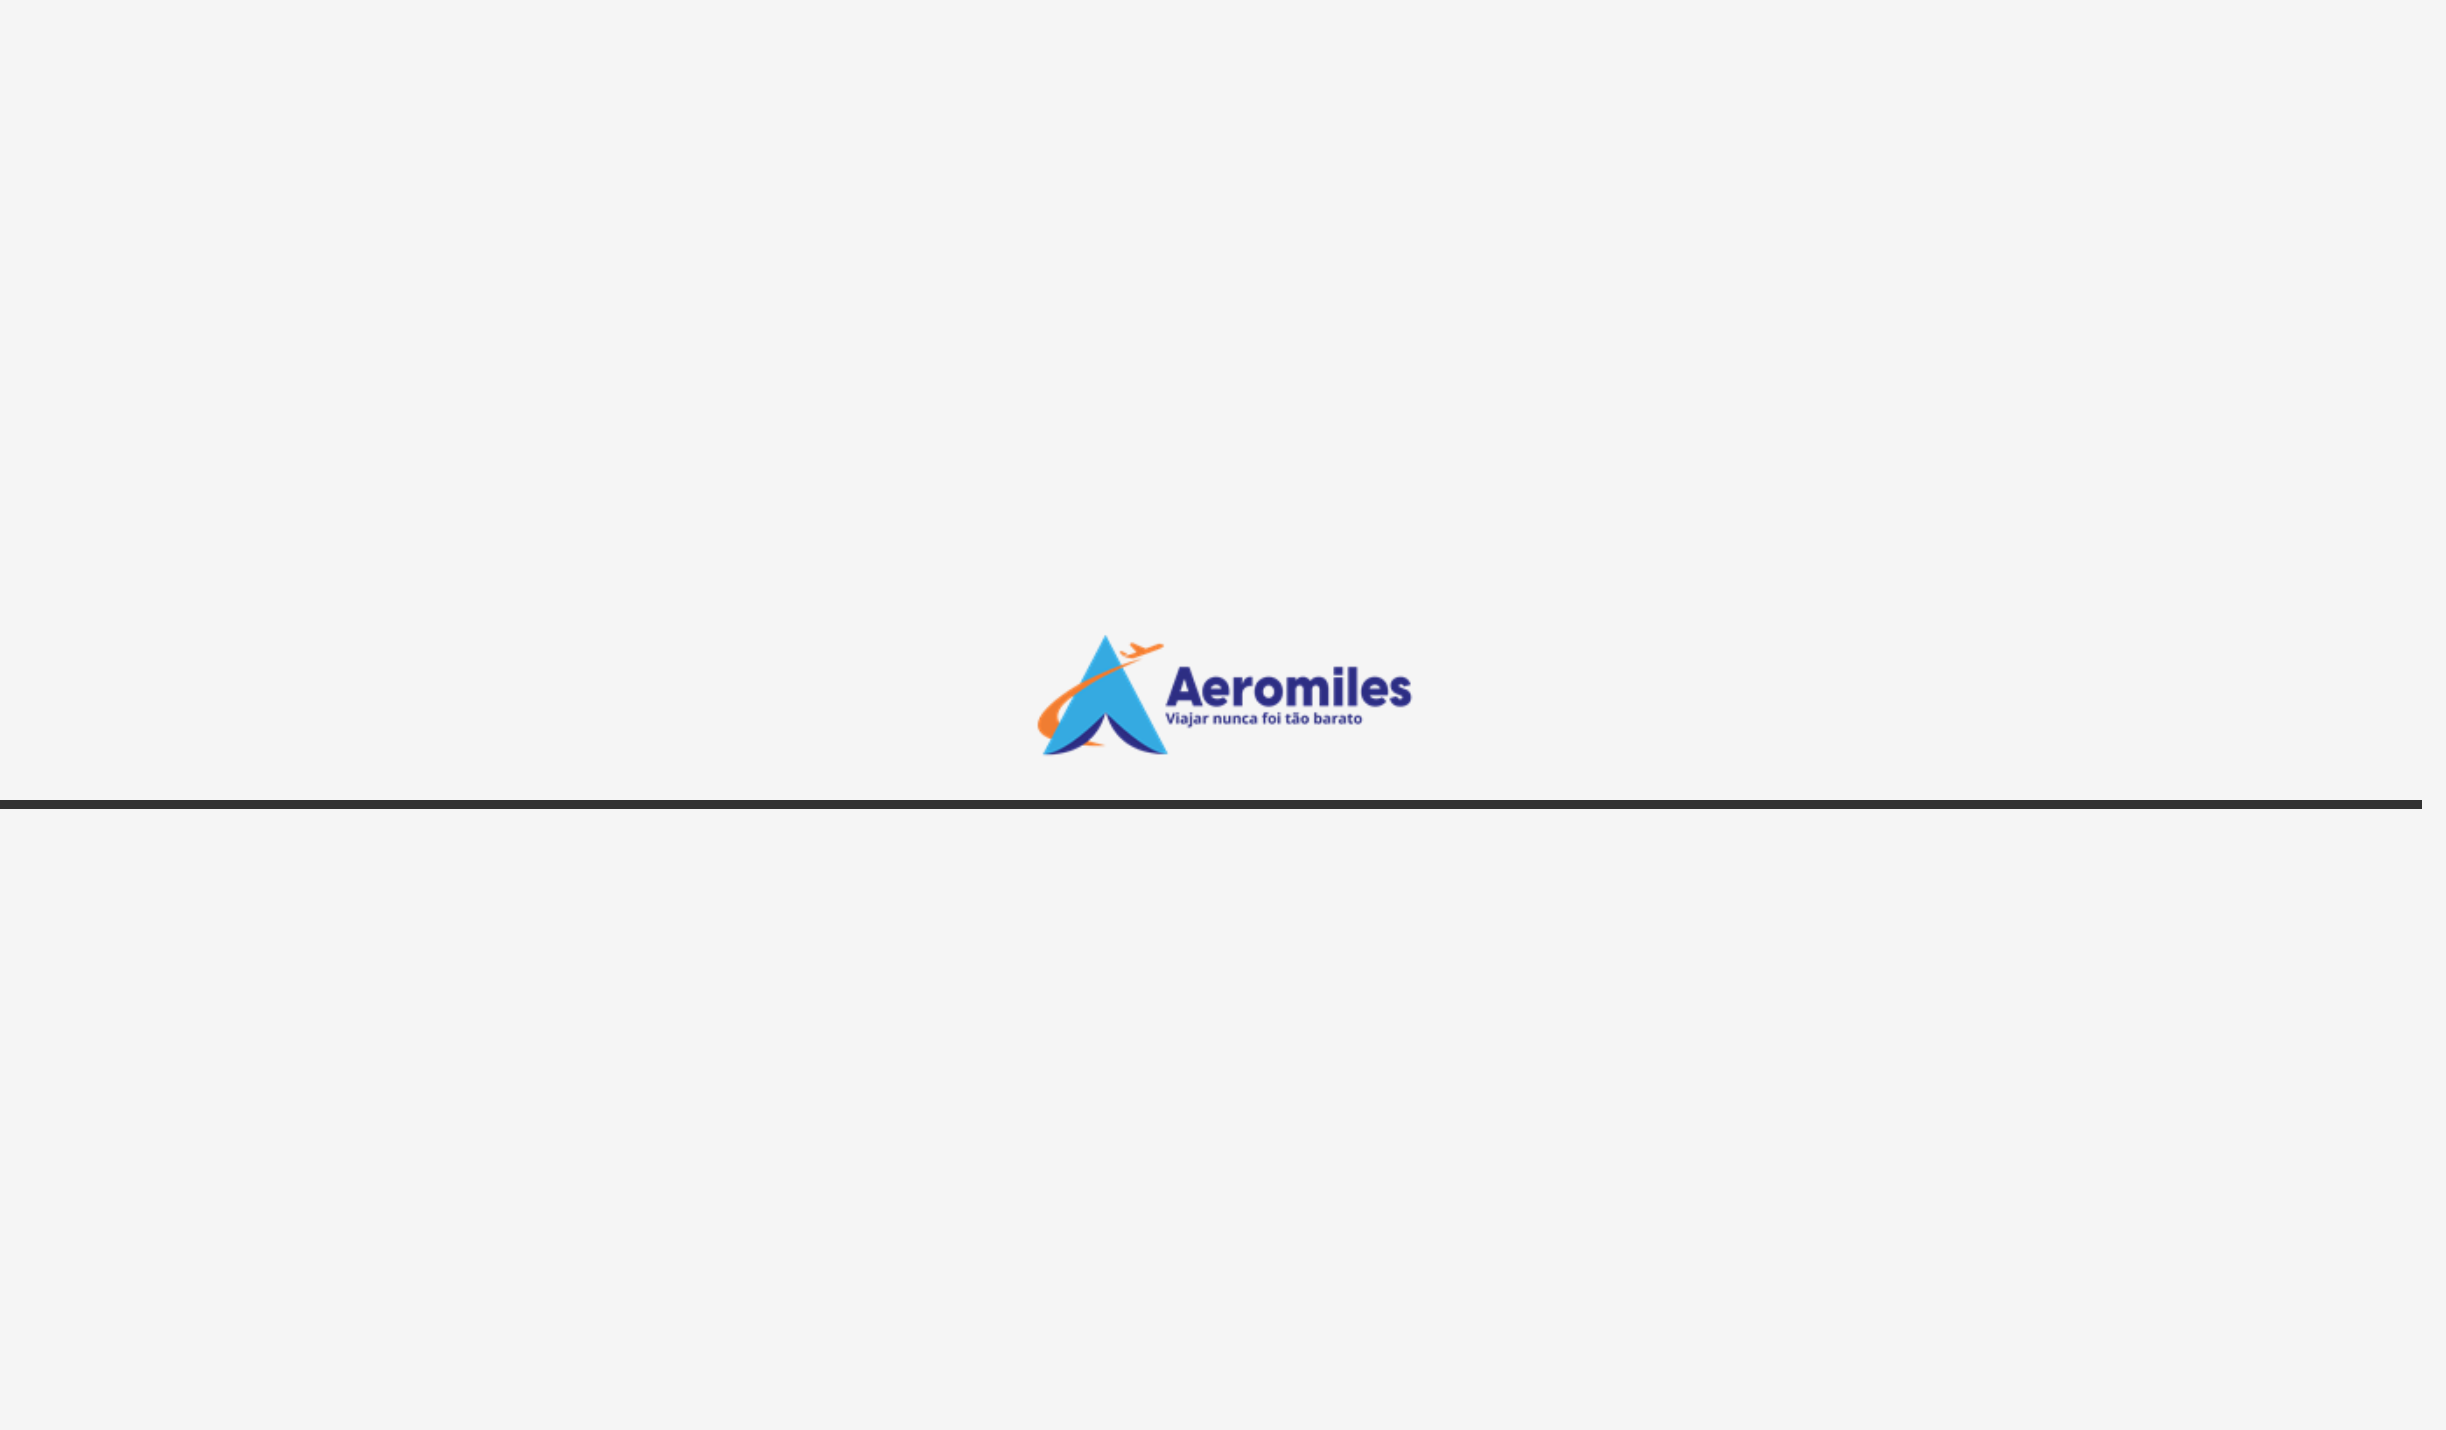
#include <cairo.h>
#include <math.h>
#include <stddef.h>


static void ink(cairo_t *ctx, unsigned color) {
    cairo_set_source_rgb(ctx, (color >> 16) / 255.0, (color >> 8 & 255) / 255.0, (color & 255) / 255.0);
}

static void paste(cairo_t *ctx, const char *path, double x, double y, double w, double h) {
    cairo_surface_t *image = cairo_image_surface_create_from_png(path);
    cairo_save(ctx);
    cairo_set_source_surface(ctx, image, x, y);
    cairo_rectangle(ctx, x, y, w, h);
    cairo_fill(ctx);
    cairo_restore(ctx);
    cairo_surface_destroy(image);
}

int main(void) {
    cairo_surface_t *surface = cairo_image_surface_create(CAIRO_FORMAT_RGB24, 2446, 1430);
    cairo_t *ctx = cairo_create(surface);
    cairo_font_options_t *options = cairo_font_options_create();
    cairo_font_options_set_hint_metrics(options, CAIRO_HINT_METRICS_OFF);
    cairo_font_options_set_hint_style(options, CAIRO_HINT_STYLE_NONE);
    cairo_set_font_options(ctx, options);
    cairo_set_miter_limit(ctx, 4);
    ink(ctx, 0xF5F5F5);
    cairo_paint(ctx);
    paste(ctx, "media/1.png", 1037, 634, 376, 123);
    ink(ctx, 0x333333);
    cairo_rectangle(ctx, 0, 800, 2422, 9);
    cairo_fill(ctx);
    cairo_surface_write_to_png(surface, "image.png");
    cairo_font_options_destroy(options);
    cairo_destroy(ctx);
    cairo_surface_destroy(surface);
    return 0;
}
